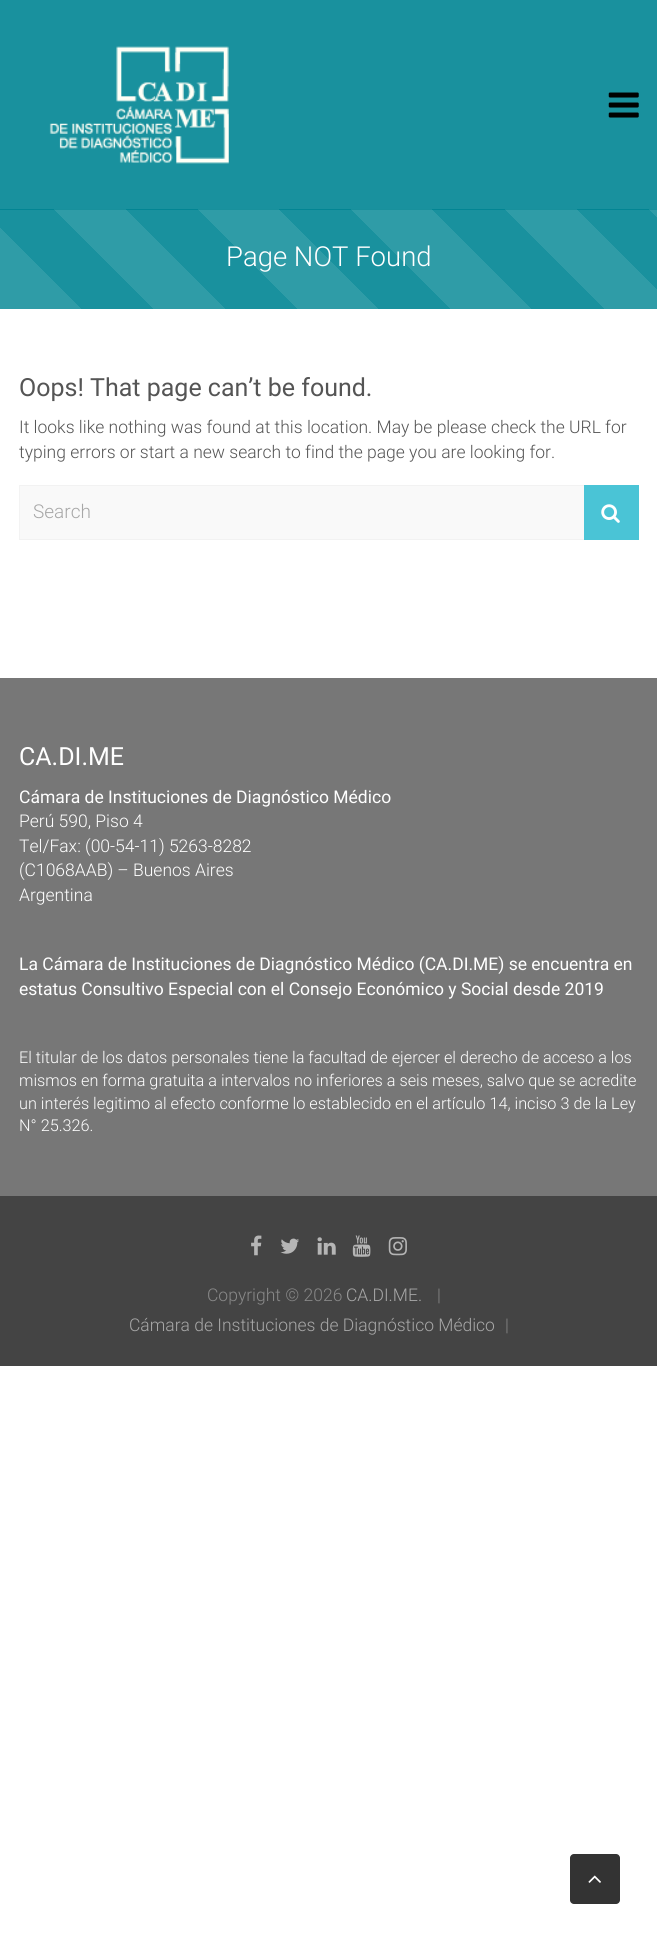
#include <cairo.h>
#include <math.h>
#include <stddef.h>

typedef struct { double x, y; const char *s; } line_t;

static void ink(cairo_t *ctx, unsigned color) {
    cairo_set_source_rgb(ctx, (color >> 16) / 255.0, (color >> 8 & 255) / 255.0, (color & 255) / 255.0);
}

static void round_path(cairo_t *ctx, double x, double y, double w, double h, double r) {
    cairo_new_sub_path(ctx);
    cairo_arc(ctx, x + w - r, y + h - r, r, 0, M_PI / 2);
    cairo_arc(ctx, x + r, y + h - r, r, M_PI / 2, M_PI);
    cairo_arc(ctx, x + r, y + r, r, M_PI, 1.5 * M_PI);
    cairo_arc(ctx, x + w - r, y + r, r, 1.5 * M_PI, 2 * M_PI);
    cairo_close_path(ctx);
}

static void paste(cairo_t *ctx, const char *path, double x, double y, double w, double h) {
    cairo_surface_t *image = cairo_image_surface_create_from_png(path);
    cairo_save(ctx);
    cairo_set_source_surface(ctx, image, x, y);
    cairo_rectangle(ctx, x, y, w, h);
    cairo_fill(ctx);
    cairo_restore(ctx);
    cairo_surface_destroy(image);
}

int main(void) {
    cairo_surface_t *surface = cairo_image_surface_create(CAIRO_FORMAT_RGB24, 657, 1941);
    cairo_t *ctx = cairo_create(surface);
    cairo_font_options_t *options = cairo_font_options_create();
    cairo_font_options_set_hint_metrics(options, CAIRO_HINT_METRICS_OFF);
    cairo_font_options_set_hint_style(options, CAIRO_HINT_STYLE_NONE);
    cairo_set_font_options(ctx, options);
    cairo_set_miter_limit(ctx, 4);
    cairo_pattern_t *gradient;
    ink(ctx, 0xFFFFFF);
    cairo_paint(ctx);
    ink(ctx, 0x19919E);
    cairo_rectangle(ctx, 0, 0, 657, 209);
    cairo_fill(ctx);
    ink(ctx, 0x17838E);
    cairo_rectangle(ctx, 0, 209, 657, 1);
    cairo_fill(ctx);
    paste(ctx, "media/1.png", 49, 46, 180, 118);
    paste(ctx, "media/2.png", 608, 92, 31, 26);
    gradient = cairo_pattern_create_linear(139, 448, 590, -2.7);
    cairo_pattern_add_color_stop_rgba(gradient, 0, 0.094, 0.569, 0.62, 0.9);
    cairo_pattern_add_color_stop_rgba(gradient, 0.09, 0.094, 0.569, 0.62, 0.9);
    cairo_pattern_add_color_stop_rgba(gradient, 0.09, 0, 0.525, 0.58, 0.9);
    cairo_pattern_add_color_stop_rgba(gradient, 0.17, 0, 0.525, 0.58, 0.9);
    cairo_pattern_add_color_stop_rgba(gradient, 0.17, 0.094, 0.569, 0.62, 0.9);
    cairo_pattern_add_color_stop_rgba(gradient, 0.25, 0.094, 0.569, 0.62, 0.9);
    cairo_pattern_add_color_stop_rgba(gradient, 0.25, 0, 0.525, 0.58, 0.9);
    cairo_pattern_add_color_stop_rgba(gradient, 0.33, 0, 0.525, 0.58, 0.9);
    cairo_pattern_add_color_stop_rgba(gradient, 0.33, 0.094, 0.569, 0.62, 0.9);
    cairo_pattern_add_color_stop_rgba(gradient, 0.42, 0.094, 0.569, 0.62, 0.9);
    cairo_pattern_add_color_stop_rgba(gradient, 0.42, 0, 0.525, 0.58, 0.9);
    cairo_pattern_add_color_stop_rgba(gradient, 0.5, 0, 0.525, 0.58, 0.9);
    cairo_pattern_add_color_stop_rgba(gradient, 0.5, 0.094, 0.569, 0.62, 0.9);
    cairo_pattern_add_color_stop_rgba(gradient, 0.59, 0.094, 0.569, 0.62, 0.9);
    cairo_pattern_add_color_stop_rgba(gradient, 0.59, 0, 0.525, 0.58, 0.9);
    cairo_pattern_add_color_stop_rgba(gradient, 0.67, 0, 0.525, 0.58, 0.9);
    cairo_pattern_add_color_stop_rgba(gradient, 0.67, 0.094, 0.569, 0.62, 0.9);
    cairo_pattern_add_color_stop_rgba(gradient, 0.75, 0.094, 0.569, 0.62, 0.9);
    cairo_pattern_add_color_stop_rgba(gradient, 0.75, 0, 0.525, 0.58, 0.9);
    cairo_pattern_add_color_stop_rgba(gradient, 0.83, 0, 0.525, 0.58, 0.9);
    cairo_pattern_add_color_stop_rgba(gradient, 0.83, 0.094, 0.569, 0.62, 0.9);
    cairo_pattern_add_color_stop_rgba(gradient, 0.92, 0.094, 0.569, 0.62, 0.9);
    cairo_pattern_add_color_stop_rgba(gradient, 0.92, 0, 0.525, 0.58, 0.9);
    cairo_pattern_add_color_stop_rgba(gradient, 1, 0, 0.525, 0.58, 0.9);
    cairo_set_source(ctx, gradient);
    cairo_pattern_destroy(gradient);
    cairo_rectangle(ctx, 0, 209, 657, 100);
    cairo_fill(ctx);
    cairo_select_font_face(ctx, "Roboto Light", CAIRO_FONT_SLANT_NORMAL, CAIRO_FONT_WEIGHT_NORMAL);
    cairo_set_font_size(ctx, 27.5);
    ink(ctx, 0xFFFFFF);
    cairo_move_to(ctx, 226, 266);
    cairo_show_text(ctx, "Page NOT Found");
    cairo_select_font_face(ctx, "Roboto", CAIRO_FONT_SLANT_NORMAL, CAIRO_FONT_WEIGHT_NORMAL);
    cairo_set_font_size(ctx, 25);
    ink(ctx, 0x555555);
    cairo_move_to(ctx, 19, 396);
    cairo_show_text(ctx, "Oops! That page can’t be found.");
    cairo_select_font_face(ctx, "Roboto Light", CAIRO_FONT_SLANT_NORMAL, CAIRO_FONT_WEIGHT_NORMAL);
    cairo_set_font_size(ctx, 17.5);
    cairo_move_to(ctx, 19, 433);
    cairo_show_text(ctx, "It looks like nothing was found at this location. May be please check the URL for");
    cairo_move_to(ctx, 19, 458);
    cairo_show_text(ctx, "typing errors or start a new search to find the page you are looking for.");
    ink(ctx, 0xF9F9F9);
    cairo_rectangle(ctx, 20, 486, 564, 53);
    cairo_fill(ctx);
    ink(ctx, 0xF2F2F2);
    cairo_new_path(ctx);
    cairo_move_to(ctx, 19, 485);
    cairo_line_to(ctx, 584, 485);
    cairo_line_to(ctx, 584, 486);
    cairo_line_to(ctx, 20, 486);
    cairo_close_path(ctx);
    cairo_fill(ctx);
    cairo_new_path(ctx);
    cairo_move_to(ctx, 584, 540);
    cairo_line_to(ctx, 19, 540);
    cairo_line_to(ctx, 20, 539);
    cairo_line_to(ctx, 584, 539);
    cairo_close_path(ctx);
    cairo_fill(ctx);
    cairo_set_source_rgba(ctx, 0, 0, 0, 0.05);
    cairo_new_path(ctx);
    cairo_move_to(ctx, 19, 540);
    cairo_line_to(ctx, 19, 485);
    cairo_line_to(ctx, 20, 486);
    cairo_line_to(ctx, 20, 539);
    cairo_close_path(ctx);
    cairo_fill(ctx);
    cairo_set_font_size(ctx, 19);
    ink(ctx, 0xA7A7A7);
    cairo_move_to(ctx, 33, 518);
    cairo_show_text(ctx, "Search");
    ink(ctx, 0x4AC4D6);
    cairo_rectangle(ctx, 584, 485, 55, 55);
    cairo_fill(ctx);
    paste(ctx, "media/3.png", 601, 504, 19, 19);
    ink(ctx, 0x777777);
    cairo_rectangle(ctx, 0, 678, 657, 518);
    cairo_fill(ctx);
    cairo_select_font_face(ctx, "Roboto", CAIRO_FONT_SLANT_NORMAL, CAIRO_FONT_WEIGHT_NORMAL);
    cairo_set_font_size(ctx, 25);
    ink(ctx, 0xFFFFFF);
    cairo_move_to(ctx, 19, 765);
    cairo_show_text(ctx, "CA.DI.ME");
    cairo_set_font_size(ctx, 17.5);
    cairo_move_to(ctx, 19, 803);
    cairo_show_text(ctx, "Cámara de Instituciones de Diagnóstico Médico");
    cairo_select_font_face(ctx, "Roboto Light", CAIRO_FONT_SLANT_NORMAL, CAIRO_FONT_WEIGHT_NORMAL);
    {
        static const line_t items[] = {
            {19, 827, "Perú 590, Piso 4"},
            {19, 852, "Tel/Fax: (00-54-11) 5263-8282"},
            {19, 876, "(C1068AAB) – Buenos Aires"},
            {19, 901, "Argentina"},
        };
        for (size_t i = 0; i < sizeof items / sizeof *items; i++) {
            cairo_move_to(ctx, items[i].x, items[i].y);
            cairo_show_text(ctx, items[i].s);
        }
    }
    cairo_select_font_face(ctx, "Roboto", CAIRO_FONT_SLANT_NORMAL, CAIRO_FONT_WEIGHT_NORMAL);
    cairo_move_to(ctx, 19, 970);
    cairo_show_text(ctx, "La Cámara de Instituciones de Diagnóstico Médico (CA.DI.ME) se encuentra en");
    cairo_move_to(ctx, 19, 995);
    cairo_show_text(ctx, "estatus Consultivo Especial con el Consejo Económico y Social desde 2019");
    cairo_select_font_face(ctx, "Roboto Light", CAIRO_FONT_SLANT_NORMAL, CAIRO_FONT_WEIGHT_NORMAL);
    cairo_set_font_size(ctx, 16.25);
    {
        static const line_t items[] = {
            {19, 1063, "El titular de los datos personales tiene la facultad de ejercer el derecho de acceso a los"},
            {19, 1086, "mismos en forma gratuita a intervalos no inferiores a seis meses, salvo que se acredite"},
            {19, 1109, "un interés legitimo al efecto conforme lo establecido en el artículo 14, inciso 3 de la Ley"},
            {19, 1131, "N° 25.326."},
        };
        for (size_t i = 0; i < sizeof items / sizeof *items; i++) {
            cairo_move_to(ctx, items[i].x, items[i].y);
            cairo_show_text(ctx, items[i].s);
        }
    }
    ink(ctx, 0x444444);
    cairo_rectangle(ctx, 0, 1196, 657, 170);
    cairo_fill(ctx);
    paste(ctx, "media/4.png", 251, 1235, 11, 21);
    paste(ctx, "media/5.png", 280, 1238, 19, 16);
    paste(ctx, "media/6.png", 317, 1237, 19, 18);
    paste(ctx, "media/7.png", 352, 1235, 19, 22);
    paste(ctx, "media/8.png", 388, 1237, 19, 19);
    cairo_set_font_size(ctx, 17.5);
    ink(ctx, 0x888888);
    cairo_move_to(ctx, 207, 1301);
    cairo_show_text(ctx, "Copyright © 2026");
    ink(ctx, 0xA7A7A7);
    cairo_move_to(ctx, 346, 1301);
    cairo_show_text(ctx, "CA.DI.ME.");
    ink(ctx, 0x888888);
    cairo_move_to(ctx, 437, 1301);
    cairo_show_text(ctx, "|");
    ink(ctx, 0xA7A7A7);
    cairo_move_to(ctx, 129, 1331);
    cairo_show_text(ctx, "Cámara de Instituciones de Diagnóstico Médico");
    ink(ctx, 0x888888);
    cairo_move_to(ctx, 505, 1331);
    cairo_show_text(ctx, "|");
    ink(ctx, 0x333333);
    round_path(ctx, 570, 1854, 50, 50, 4);
    cairo_fill(ctx);
    paste(ctx, "media/9.png", 588, 1875, 13, 8);
    cairo_surface_write_to_png(surface, "image.png");
    cairo_font_options_destroy(options);
    cairo_destroy(ctx);
    cairo_surface_destroy(surface);
    return 0;
}
